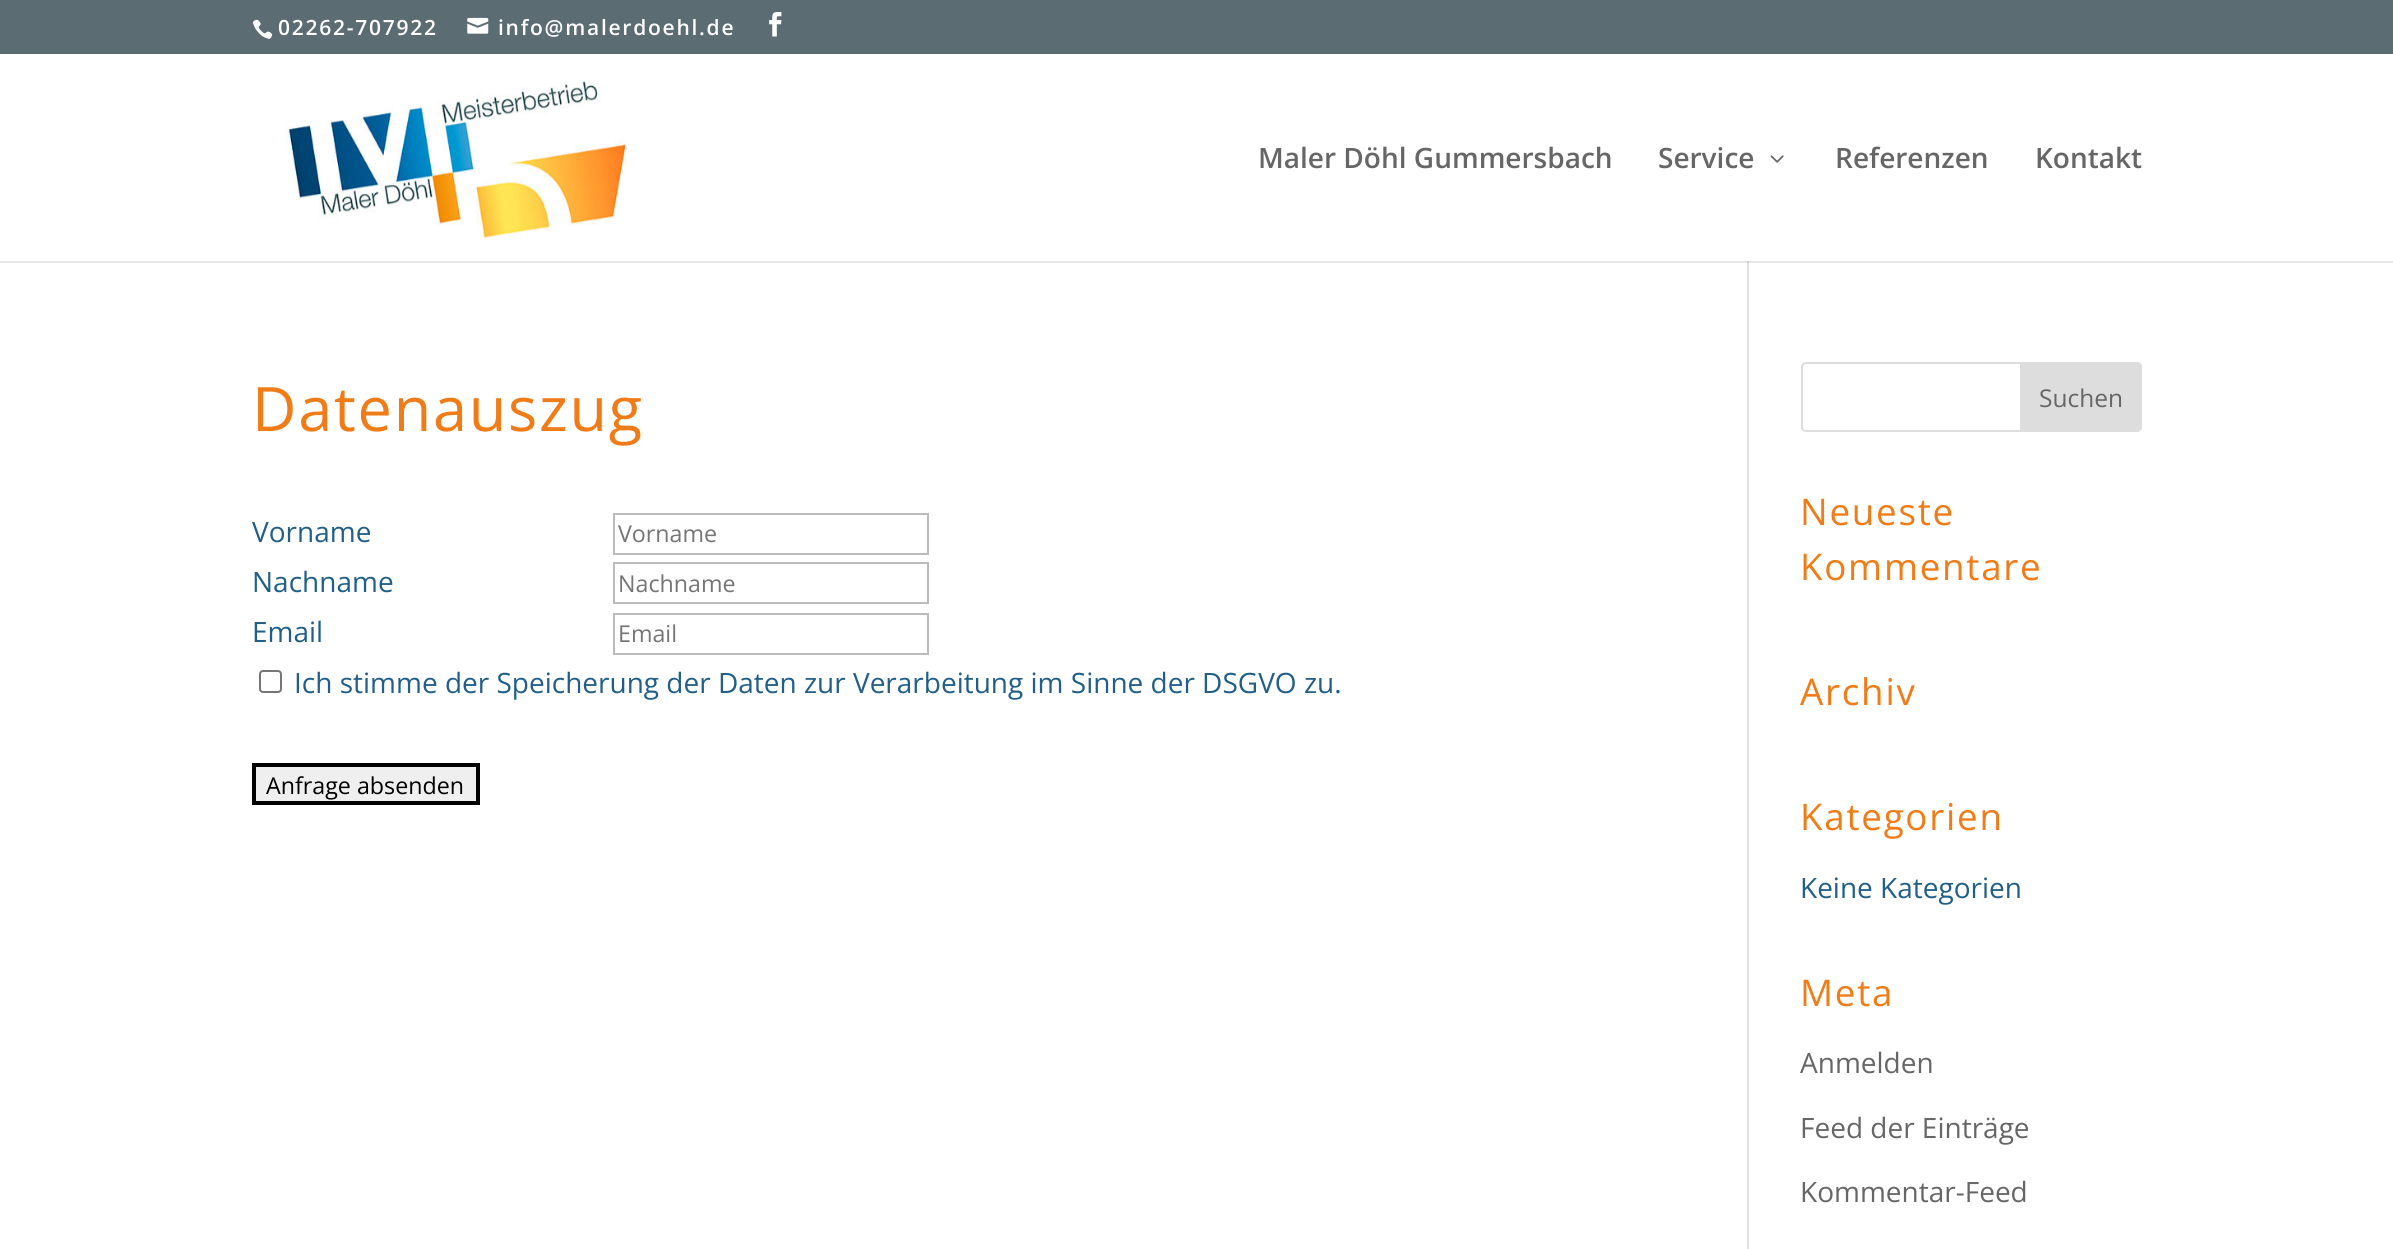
#include <cairo.h>
#include <math.h>
#include <stddef.h>

typedef struct { double x, y; const char *s; } line_t;

static void ink(cairo_t *ctx, unsigned color) {
    cairo_set_source_rgb(ctx, (color >> 16) / 255.0, (color >> 8 & 255) / 255.0, (color & 255) / 255.0);
}

static void write_spaced(cairo_t *ctx, double x, double y, const char *s, double letter, double word) {
    cairo_move_to(ctx, x, y);
    while (*s) {
        char ch[5] = {0};
        int n = 0;
        do ch[n++] = *s++; while ((*s & 0xC0) == 0x80);
        cairo_show_text(ctx, ch);
        cairo_rel_move_to(ctx, letter + word * (*ch == ' '), 0);
    }
}

static void round_path(cairo_t *ctx, double x, double y, double w, double h, double r) {
    cairo_new_sub_path(ctx);
    cairo_arc(ctx, x + w - r, y + h - r, r, 0, M_PI / 2);
    cairo_arc(ctx, x + r, y + h - r, r, M_PI / 2, M_PI);
    cairo_arc(ctx, x + r, y + r, r, M_PI, 1.5 * M_PI);
    cairo_arc(ctx, x + w - r, y + r, r, 1.5 * M_PI, 2 * M_PI);
    cairo_close_path(ctx);
}

static void paste(cairo_t *ctx, const char *path, double x, double y, double w, double h) {
    cairo_surface_t *image = cairo_image_surface_create_from_png(path);
    cairo_save(ctx);
    cairo_set_source_surface(ctx, image, x, y);
    cairo_rectangle(ctx, x, y, w, h);
    cairo_fill(ctx);
    cairo_restore(ctx);
    cairo_surface_destroy(image);
}

int main(void) {
    cairo_surface_t *surface = cairo_image_surface_create(CAIRO_FORMAT_RGB24, 2393, 1249);
    cairo_t *ctx = cairo_create(surface);
    cairo_font_options_t *options = cairo_font_options_create();
    cairo_font_options_set_hint_metrics(options, CAIRO_HINT_METRICS_OFF);
    cairo_font_options_set_hint_style(options, CAIRO_HINT_STYLE_NONE);
    cairo_set_font_options(ctx, options);
    cairo_set_miter_limit(ctx, 4);
    ink(ctx, 0xFFFFFF);
    cairo_paint(ctx);
    ink(ctx, 0xE6E6E6);
    cairo_rectangle(ctx, 0, 261, 2393, 2);
    cairo_fill(ctx);
    ink(ctx, 0x5B6C73);
    cairo_rectangle(ctx, 0, 0, 2393, 54);
    cairo_fill(ctx);
    paste(ctx, "media/1.png", 252, 19, 21, 20);
    cairo_select_font_face(ctx, "Open Sans SemiBold", CAIRO_FONT_SLANT_NORMAL, CAIRO_FONT_WEIGHT_NORMAL);
    cairo_set_font_size(ctx, 21);
    ink(ctx, 0xFFFFFF);
    write_spaced(ctx, 278, 35, "02262-707922", 1.75, 0);
    paste(ctx, "media/2.png", 467, 17, 22, 17);
    write_spaced(ctx, 498, 35, "info@malerdoehl.de", 1.75, 0);
    paste(ctx, "media/3.png", 769, 12, 13, 25);
    paste(ctx, "media/4.png", 285, 81, 342, 158);
    cairo_set_font_size(ctx, 28);
    ink(ctx, 0x666666);
    cairo_move_to(ctx, 1258, 168);
    cairo_show_text(ctx, "Maler Döhl Gummersbach");
    cairo_move_to(ctx, 1658, 168);
    cairo_show_text(ctx, "Service");
    paste(ctx, "media/5.png", 1770, 155, 14, 8);
    cairo_move_to(ctx, 1835, 168);
    cairo_show_text(ctx, "Referenzen");
    cairo_move_to(ctx, 2035, 168);
    cairo_show_text(ctx, "Kontakt");
    ink(ctx, 0xE2E2E2);
    cairo_rectangle(ctx, 1747, 261, 2, 988);
    cairo_fill(ctx);
    ink(ctx, 0xCBCBCB);
    cairo_rectangle(ctx, 1747, 261, 2, 2);
    cairo_fill(ctx);
    cairo_select_font_face(ctx, "Open Sans", CAIRO_FONT_SLANT_NORMAL, CAIRO_FONT_WEIGHT_NORMAL);
    cairo_set_font_size(ctx, 61.25);
    ink(ctx, 0xF07C17);
    write_spaced(ctx, 252, 431, "Datenauszug", 1.75, 0);
    cairo_set_font_size(ctx, 28);
    ink(ctx, 0x225F88);
    cairo_move_to(ctx, 252, 542);
    cairo_show_text(ctx, "Vorname");
    cairo_rectangle(ctx, 614, 514, 314, 40);
    ink(ctx, 0xBBBBBB);
    cairo_stroke(ctx);
    cairo_set_font_size(ctx, 23.25);
    ink(ctx, 0x757575);
    cairo_move_to(ctx, 618, 542);
    cairo_show_text(ctx, "Vorname");
    cairo_set_font_size(ctx, 28);
    ink(ctx, 0x225F88);
    cairo_move_to(ctx, 252, 592);
    cairo_show_text(ctx, "Nachname");
    cairo_rectangle(ctx, 614, 563, 314, 40);
    ink(ctx, 0xBBBBBB);
    cairo_stroke(ctx);
    cairo_set_font_size(ctx, 23.25);
    ink(ctx, 0x757575);
    cairo_move_to(ctx, 618, 592);
    cairo_show_text(ctx, "Nachname");
    cairo_set_font_size(ctx, 28);
    ink(ctx, 0x225F88);
    cairo_move_to(ctx, 252, 642);
    cairo_show_text(ctx, "Email");
    cairo_rectangle(ctx, 614, 614, 314, 40);
    ink(ctx, 0xBBBBBB);
    cairo_stroke(ctx);
    cairo_set_font_size(ctx, 23.25);
    ink(ctx, 0x757575);
    cairo_move_to(ctx, 618, 642);
    cairo_show_text(ctx, "Email");
    round_path(ctx, 260, 671, 21, 21, 3);
    ink(ctx, 0x767676);
    cairo_stroke(ctx);
    cairo_set_font_size(ctx, 28);
    ink(ctx, 0x225F88);
    cairo_move_to(ctx, 294, 693);
    cairo_show_text(ctx, "Ich stimme der Speicherung der Daten zur Verarbeitung im Sinne der DSGVO zu.");
    ink(ctx, 0xEFEFEF);
    cairo_rectangle(ctx, 254, 765, 224, 38);
    cairo_fill_preserve(ctx);
    ink(ctx, 0x000000);
    cairo_set_line_width(ctx, 4);
    cairo_stroke(ctx);
    cairo_set_font_size(ctx, 23.25);
    cairo_move_to(ctx, 266, 794);
    cairo_show_text(ctx, "Anfrage absenden");
    round_path(ctx, 1802, 363, 339, 68, 4);
    ink(ctx, 0xDDDDDD);
    cairo_set_line_width(ctx, 2);
    cairo_stroke(ctx);
    cairo_new_path(ctx);
    cairo_move_to(ctx, 2021, 363);
    cairo_line_to(ctx, 2137, 363);
    cairo_curve_to(ctx, 2139, 363, 2141, 365, 2141, 367);
    cairo_line_to(ctx, 2141, 427);
    cairo_curve_to(ctx, 2141, 429, 2139, 431, 2137, 431);
    cairo_line_to(ctx, 2021, 431);
    cairo_close_path(ctx);
    cairo_fill_preserve(ctx);
    cairo_stroke(ctx);
    cairo_set_font_size(ctx, 24.5);
    ink(ctx, 0x666666);
    cairo_move_to(ctx, 2039, 407);
    cairo_show_text(ctx, "Suchen");
    cairo_set_font_size(ctx, 36.75);
    ink(ctx, 0xF07C17);
    {
        static const line_t items[] = {
            {1800, 525, "Neueste"},
            {1800, 580, "Kommentare"},
            {1800, 705, "Archiv"},
            {1800, 830, "Kategorien"},
        };
        for (size_t i = 0; i < sizeof items / sizeof *items; i++) {
            write_spaced(ctx, items[i].x, items[i].y, items[i].s, 1.75, 0);
        }
    }
    cairo_set_font_size(ctx, 28);
    ink(ctx, 0x225F88);
    cairo_move_to(ctx, 1800, 898);
    cairo_show_text(ctx, "Keine Kategorien");
    cairo_set_font_size(ctx, 36.75);
    ink(ctx, 0xF07C17);
    write_spaced(ctx, 1800, 1006, "Meta", 1.75, 0);
    cairo_set_font_size(ctx, 28);
    ink(ctx, 0x666666);
    {
        static const line_t items[] = {
            {1800, 1073, "Anmelden"},
            {1800, 1138, "Feed der Einträge"},
            {1800, 1202, "Kommentar-Feed"},
        };
        for (size_t i = 0; i < sizeof items / sizeof *items; i++) {
            cairo_move_to(ctx, items[i].x, items[i].y);
            cairo_show_text(ctx, items[i].s);
        }
    }
    cairo_surface_write_to_png(surface, "image.png");
    cairo_font_options_destroy(options);
    cairo_destroy(ctx);
    cairo_surface_destroy(surface);
    return 0;
}
